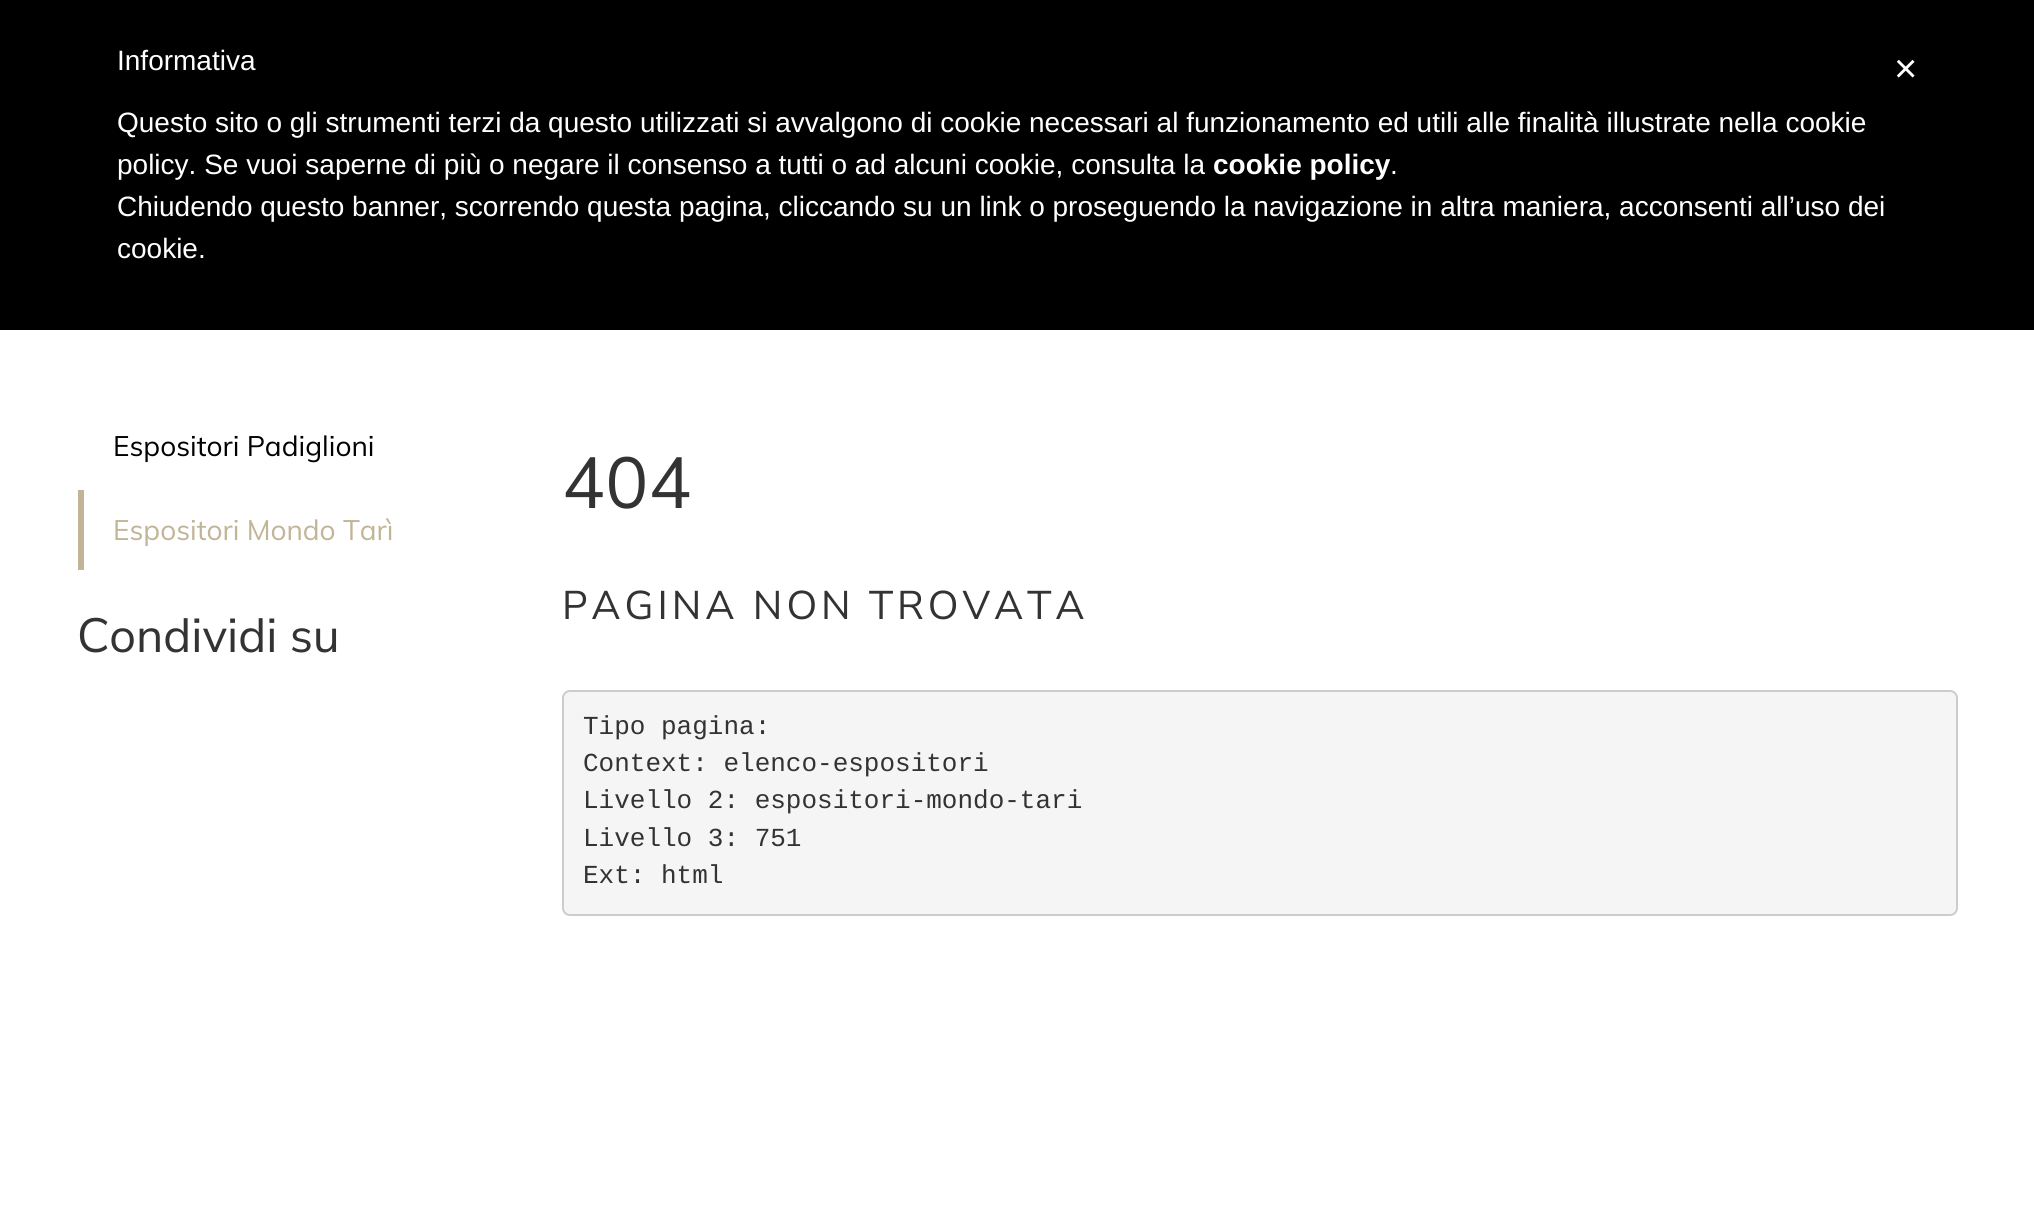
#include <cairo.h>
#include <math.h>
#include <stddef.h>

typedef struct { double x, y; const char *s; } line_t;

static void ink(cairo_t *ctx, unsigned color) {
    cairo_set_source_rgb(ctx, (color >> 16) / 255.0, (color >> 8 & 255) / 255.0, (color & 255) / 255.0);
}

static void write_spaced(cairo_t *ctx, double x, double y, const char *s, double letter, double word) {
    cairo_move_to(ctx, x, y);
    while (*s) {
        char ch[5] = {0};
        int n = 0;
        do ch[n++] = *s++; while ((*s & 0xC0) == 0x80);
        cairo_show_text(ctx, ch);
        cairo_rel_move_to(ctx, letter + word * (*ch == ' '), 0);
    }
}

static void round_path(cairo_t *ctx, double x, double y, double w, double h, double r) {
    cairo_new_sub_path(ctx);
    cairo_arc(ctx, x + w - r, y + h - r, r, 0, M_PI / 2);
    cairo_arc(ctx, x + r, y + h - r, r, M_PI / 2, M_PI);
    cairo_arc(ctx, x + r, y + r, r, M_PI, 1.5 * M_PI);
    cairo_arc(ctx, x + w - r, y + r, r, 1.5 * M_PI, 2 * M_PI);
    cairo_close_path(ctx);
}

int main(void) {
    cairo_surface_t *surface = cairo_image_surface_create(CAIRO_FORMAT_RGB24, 2034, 1222);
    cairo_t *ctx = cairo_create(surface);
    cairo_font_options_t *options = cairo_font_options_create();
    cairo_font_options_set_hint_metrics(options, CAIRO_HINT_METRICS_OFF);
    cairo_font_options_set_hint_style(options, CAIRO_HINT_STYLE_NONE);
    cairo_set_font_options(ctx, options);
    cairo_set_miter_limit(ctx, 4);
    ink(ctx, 0xFFFFFF);
    cairo_paint(ctx);
    ink(ctx, 0x000000);
    cairo_rectangle(ctx, 0, 0, 2034, 330);
    cairo_fill(ctx);
    cairo_select_font_face(ctx, "Liberation Sans", CAIRO_FONT_SLANT_NORMAL, CAIRO_FONT_WEIGHT_NORMAL);
    cairo_set_font_size(ctx, 28);
    ink(ctx, 0xFFFFFF);
    {
        static const line_t items[] = {
            {117, 70, "Informativa"},
            {117, 132, "Questo sito o gli strumenti terzi da questo utilizzati si avvalgono di cookie necessari al funzionamento ed utili alle finalità illustrate nella cookie"},
            {117, 174, "policy. Se vuoi saperne di più o negare il consenso a tutti o ad alcuni cookie, consulta la"},
        };
        for (size_t i = 0; i < sizeof items / sizeof *items; i++) {
            cairo_move_to(ctx, items[i].x, items[i].y);
            cairo_show_text(ctx, items[i].s);
        }
    }
    cairo_select_font_face(ctx, "Liberation Sans", CAIRO_FONT_SLANT_NORMAL, CAIRO_FONT_WEIGHT_BOLD);
    cairo_move_to(ctx, 1213, 174);
    cairo_show_text(ctx, "cookie policy");
    cairo_select_font_face(ctx, "Liberation Sans", CAIRO_FONT_SLANT_NORMAL, CAIRO_FONT_WEIGHT_NORMAL);
    {
        static const line_t items[] = {
            {1390, 174, "."},
            {117, 216, "Chiudendo questo banner, scorrendo questa pagina, cliccando su un link o proseguendo la navigazione in altra maniera, acconsenti all’uso dei"},
            {117, 258, "cookie."},
        };
        for (size_t i = 0; i < sizeof items / sizeof *items; i++) {
            cairo_move_to(ctx, items[i].x, items[i].y);
            cairo_show_text(ctx, items[i].s);
        }
    }
    cairo_set_font_size(ctx, 40);
    cairo_move_to(ctx, 1894, 82);
    cairo_show_text(ctx, "×");
    cairo_select_font_face(ctx, "Muli", CAIRO_FONT_SLANT_NORMAL, CAIRO_FONT_WEIGHT_NORMAL);
    cairo_set_font_size(ctx, 28);
    ink(ctx, 0x000000);
    cairo_move_to(ctx, 113, 456);
    cairo_show_text(ctx, "Espositori Padiglioni");
    ink(ctx, 0xC1B497);
    cairo_rectangle(ctx, 78, 490, 6, 80);
    cairo_fill(ctx);
    cairo_move_to(ctx, 113, 540);
    cairo_show_text(ctx, "Espositori Mondo Tarì");
    cairo_select_font_face(ctx, "Nunito Sans", CAIRO_FONT_SLANT_NORMAL, CAIRO_FONT_WEIGHT_NORMAL);
    cairo_set_font_size(ctx, 48);
    ink(ctx, 0x333333);
    cairo_move_to(ctx, 77, 652);
    cairo_show_text(ctx, "Condividi su");
    cairo_set_font_size(ctx, 72);
    cairo_move_to(ctx, 562, 508);
    cairo_show_text(ctx, "404");
    cairo_set_font_size(ctx, 40);
    write_spaced(ctx, 562, 619, "PAGINA NON TROVATA", 4, 0);
    ink(ctx, 0xF5F5F5);
    round_path(ctx, 563, 691, 1394, 224, 7);
    cairo_fill_preserve(ctx);
    ink(ctx, 0xCCCCCC);
    cairo_stroke(ctx);
    cairo_select_font_face(ctx, "Liberation Mono", CAIRO_FONT_SLANT_NORMAL, CAIRO_FONT_WEIGHT_NORMAL);
    cairo_set_font_size(ctx, 26);
    ink(ctx, 0x333333);
    {
        static const line_t items[] = {
            {583, 734, "Tipo pagina:"},
            {583, 771, "Context: elenco-espositori"},
            {583, 808, "Livello 2: espositori-mondo-tari"},
            {583, 846, "Livello 3: 751"},
            {583, 883, "Ext: html"},
        };
        for (size_t i = 0; i < sizeof items / sizeof *items; i++) {
            cairo_move_to(ctx, items[i].x, items[i].y);
            cairo_show_text(ctx, items[i].s);
        }
    }
    cairo_surface_write_to_png(surface, "image.png");
    cairo_font_options_destroy(options);
    cairo_destroy(ctx);
    cairo_surface_destroy(surface);
    return 0;
}
